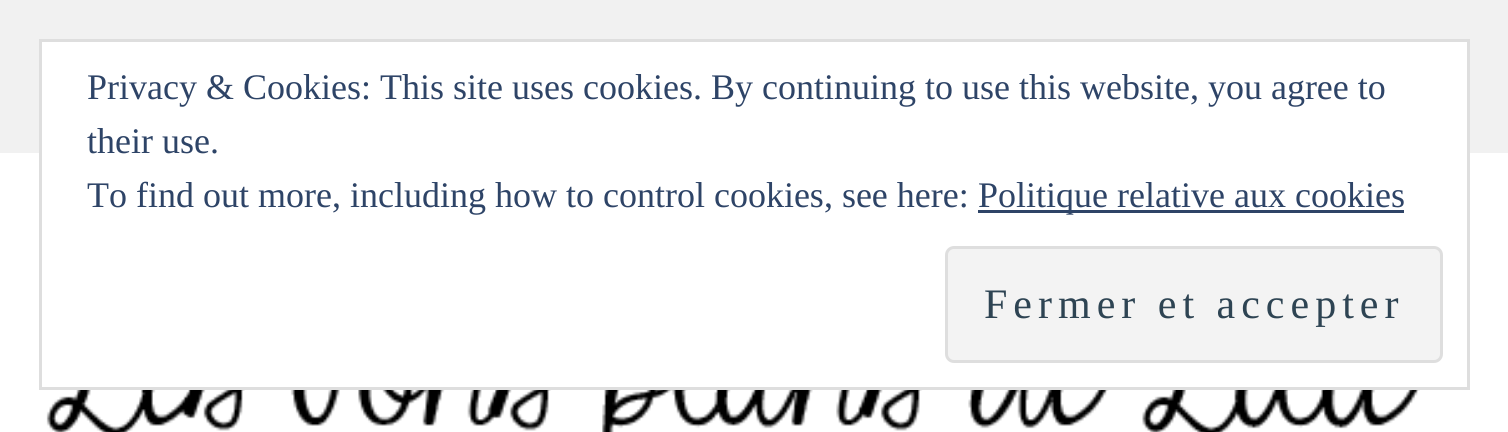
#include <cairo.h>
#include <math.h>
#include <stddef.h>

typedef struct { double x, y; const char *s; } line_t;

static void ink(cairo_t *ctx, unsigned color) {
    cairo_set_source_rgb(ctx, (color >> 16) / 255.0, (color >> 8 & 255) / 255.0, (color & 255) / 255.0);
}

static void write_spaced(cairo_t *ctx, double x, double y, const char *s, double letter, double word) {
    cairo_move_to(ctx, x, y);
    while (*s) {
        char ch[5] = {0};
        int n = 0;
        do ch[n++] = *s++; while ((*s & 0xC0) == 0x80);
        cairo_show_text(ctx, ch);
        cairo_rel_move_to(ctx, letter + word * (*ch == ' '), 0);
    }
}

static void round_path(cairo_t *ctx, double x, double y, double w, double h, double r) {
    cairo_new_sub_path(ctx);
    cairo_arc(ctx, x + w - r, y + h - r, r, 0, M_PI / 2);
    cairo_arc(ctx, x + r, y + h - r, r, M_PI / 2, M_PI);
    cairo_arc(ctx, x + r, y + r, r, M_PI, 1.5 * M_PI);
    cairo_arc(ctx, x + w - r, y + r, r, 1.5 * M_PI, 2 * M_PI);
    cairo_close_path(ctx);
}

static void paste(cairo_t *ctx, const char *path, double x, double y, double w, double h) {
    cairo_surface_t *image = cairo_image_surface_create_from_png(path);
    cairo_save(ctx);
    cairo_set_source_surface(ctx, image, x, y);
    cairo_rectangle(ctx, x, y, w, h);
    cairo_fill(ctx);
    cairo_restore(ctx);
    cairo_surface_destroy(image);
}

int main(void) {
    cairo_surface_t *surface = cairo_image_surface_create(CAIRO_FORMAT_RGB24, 1508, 432);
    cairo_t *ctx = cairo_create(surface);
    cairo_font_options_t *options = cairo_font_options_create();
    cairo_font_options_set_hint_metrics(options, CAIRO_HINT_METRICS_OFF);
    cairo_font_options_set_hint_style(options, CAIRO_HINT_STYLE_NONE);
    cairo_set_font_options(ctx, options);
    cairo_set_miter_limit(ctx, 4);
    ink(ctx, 0xFFFFFF);
    cairo_paint(ctx);
    ink(ctx, 0xF1F1F1);
    cairo_rectangle(ctx, 0, 0, 1508, 153);
    cairo_fill(ctx);
    ink(ctx, 0xFFFFFF);
    cairo_rectangle(ctx, 42, 42, 1425, 111);
    cairo_fill(ctx);
    cairo_rectangle(ctx, 40.5, 40.5, 1428, 348);
    ink(ctx, 0xDEDEDE);
    cairo_set_line_width(ctx, 3);
    cairo_stroke(ctx);
    cairo_select_font_face(ctx, "Liberation Serif", CAIRO_FONT_SLANT_NORMAL, CAIRO_FONT_WEIGHT_NORMAL);
    cairo_set_font_size(ctx, 36);
    ink(ctx, 0x2E4467);
    {
        static const line_t items[] = {
            {87, 99, "Privacy & Cookies: This site uses cookies. By continuing to use this website, you agree to"},
            {87, 153, "their use."},
            {87, 207, "To find out more, including how to control cookies, see here:"},
        };
        for (size_t i = 0; i < sizeof items / sizeof *items; i++) {
            cairo_move_to(ctx, items[i].x, items[i].y);
            cairo_show_text(ctx, items[i].s);
        }
    }
    cairo_rectangle(ctx, 978, 210, 426, 3);
    cairo_fill(ctx);
    cairo_move_to(ctx, 978, 207);
    cairo_show_text(ctx, "Politique relative aux cookies");
    ink(ctx, 0xF3F3F3);
    round_path(ctx, 946.5, 247.5, 495, 114, 7.5);
    cairo_fill_preserve(ctx);
    ink(ctx, 0xDEDEDE);
    cairo_stroke(ctx);
    cairo_set_font_size(ctx, 42);
    ink(ctx, 0x2E4453);
    write_spaced(ctx, 984, 318, "Fermer et accepter", 6, 0);
    paste(ctx, "media/1.png", 46, 390, 1374, 42);
    cairo_surface_write_to_png(surface, "image.png");
    cairo_font_options_destroy(options);
    cairo_destroy(ctx);
    cairo_surface_destroy(surface);
    return 0;
}
